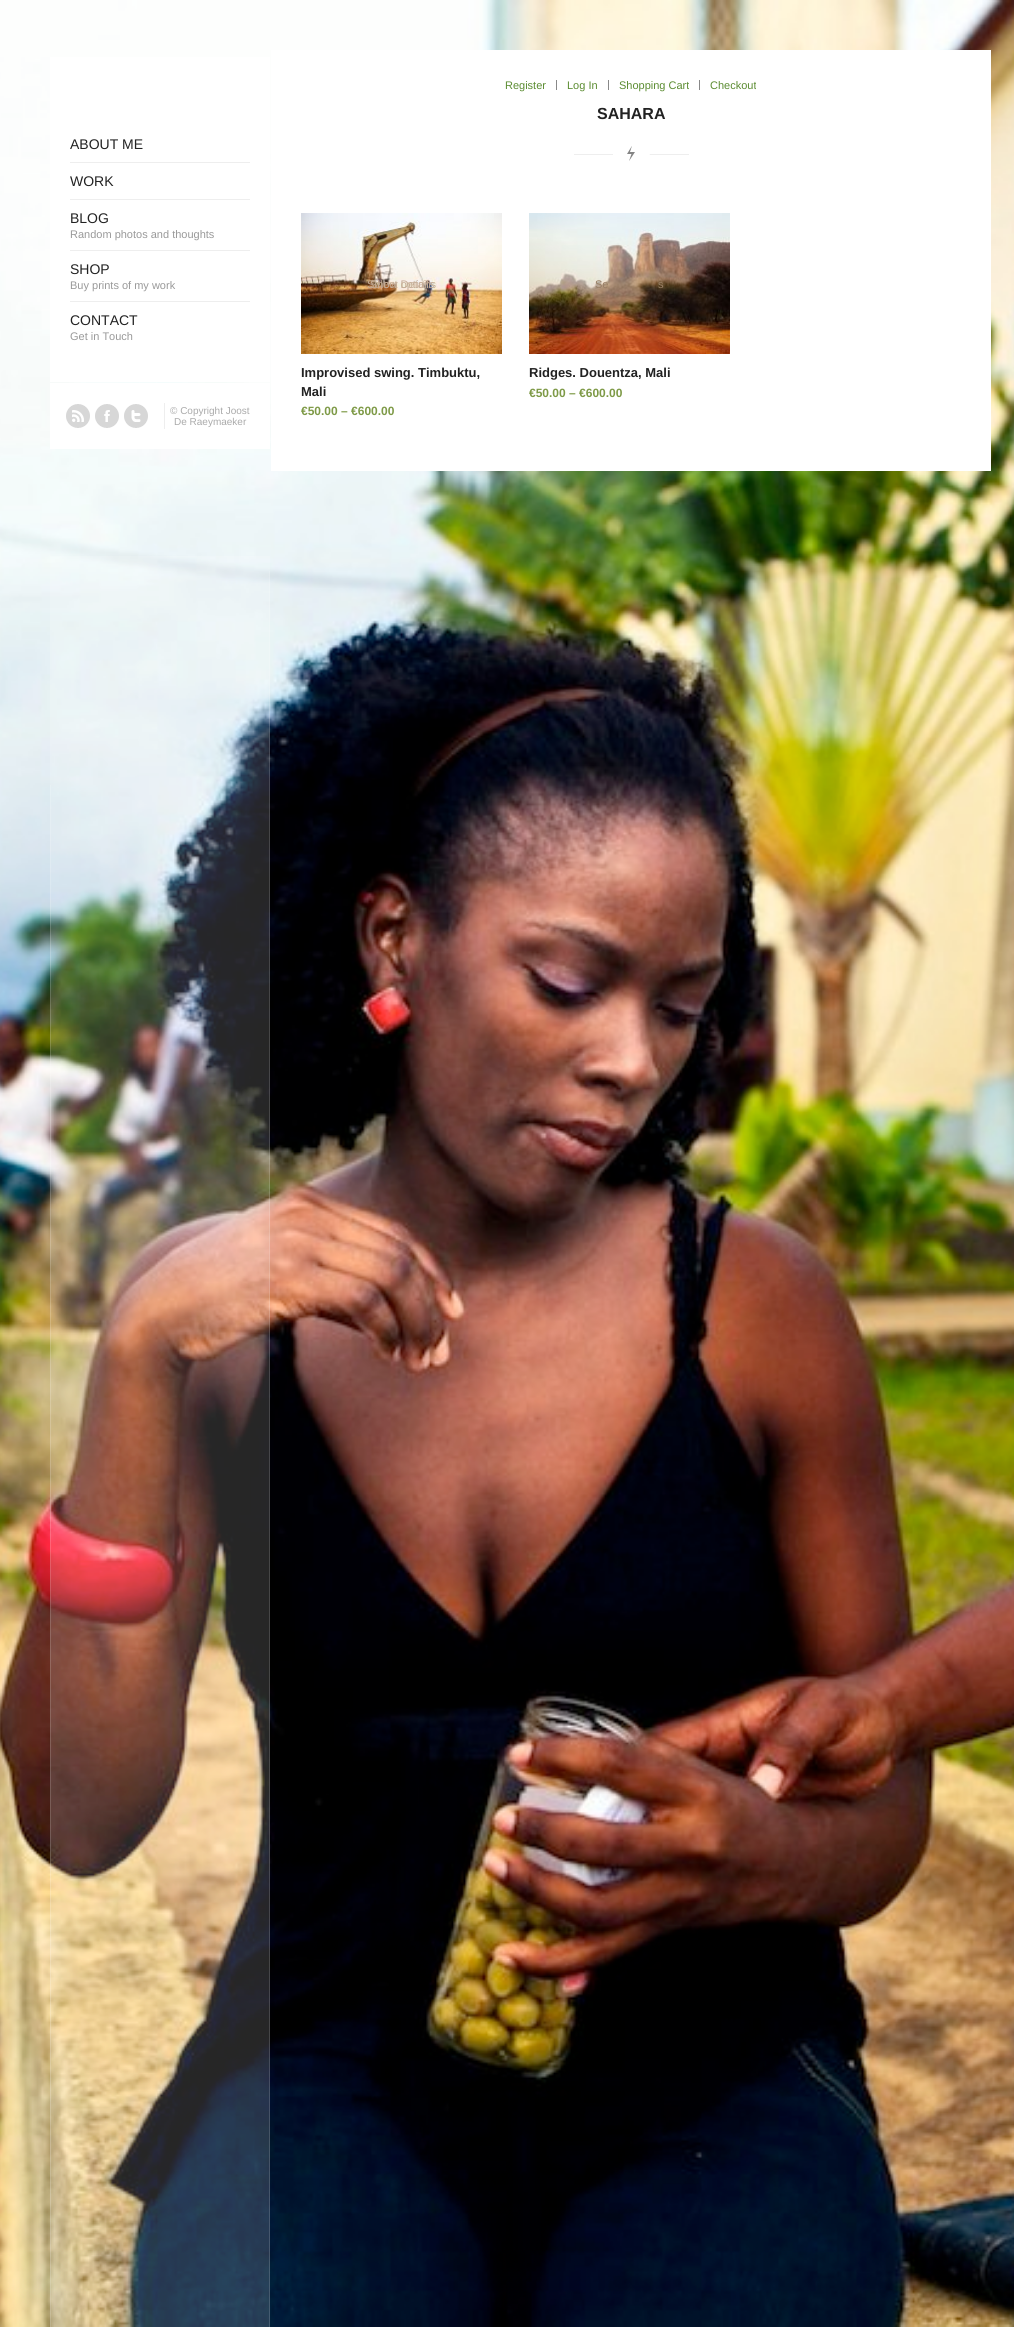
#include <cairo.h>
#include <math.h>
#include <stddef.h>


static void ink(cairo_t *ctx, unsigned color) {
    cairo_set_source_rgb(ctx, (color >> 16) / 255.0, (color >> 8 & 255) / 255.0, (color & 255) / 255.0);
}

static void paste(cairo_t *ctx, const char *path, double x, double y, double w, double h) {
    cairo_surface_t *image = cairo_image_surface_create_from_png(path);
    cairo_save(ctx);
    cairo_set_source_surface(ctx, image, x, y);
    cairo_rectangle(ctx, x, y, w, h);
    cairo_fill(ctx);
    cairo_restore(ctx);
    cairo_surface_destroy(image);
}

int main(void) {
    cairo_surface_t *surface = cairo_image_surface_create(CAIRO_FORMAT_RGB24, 1014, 2327);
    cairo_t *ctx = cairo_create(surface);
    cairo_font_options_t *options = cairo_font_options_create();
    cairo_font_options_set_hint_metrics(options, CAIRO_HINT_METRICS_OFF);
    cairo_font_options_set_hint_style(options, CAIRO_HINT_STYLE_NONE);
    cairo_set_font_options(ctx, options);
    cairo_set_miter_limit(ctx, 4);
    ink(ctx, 0xFFFFFF);
    cairo_paint(ctx);
    paste(ctx, "media/1.png", 0, 0, 1014, 2327);
    cairo_set_source_rgba(ctx, 1, 1, 1, 0.15);
    cairo_rectangle(ctx, 50, 556, 220, 1771);
    cairo_fill(ctx);
    ink(ctx, 0xFFFFFF);
    cairo_rectangle(ctx, 50, 57, 220, 325);
    cairo_fill(ctx);
    ink(ctx, 0xEEEEEE);
    cairo_rectangle(ctx, 70, 162, 180, 1);
    cairo_fill(ctx);
    cairo_select_font_face(ctx, "Liberation Sans", CAIRO_FONT_SLANT_NORMAL, CAIRO_FONT_WEIGHT_NORMAL);
    cairo_set_font_size(ctx, 14);
    ink(ctx, 0x222222);
    cairo_move_to(ctx, 70, 149);
    cairo_show_text(ctx, "ABOUT ME");
    ink(ctx, 0xEEEEEE);
    cairo_rectangle(ctx, 70, 199, 180, 1);
    cairo_fill(ctx);
    ink(ctx, 0x222222);
    cairo_move_to(ctx, 70, 186);
    cairo_show_text(ctx, "WORK");
    ink(ctx, 0xEEEEEE);
    cairo_rectangle(ctx, 70, 250, 180, 1);
    cairo_fill(ctx);
    ink(ctx, 0x222222);
    cairo_move_to(ctx, 70, 223);
    cairo_show_text(ctx, "BLOG");
    cairo_set_font_size(ctx, 11);
    ink(ctx, 0x999999);
    cairo_move_to(ctx, 70, 238);
    cairo_show_text(ctx, "Random photos and thoughts");
    ink(ctx, 0xEEEEEE);
    cairo_rectangle(ctx, 70, 301, 180, 1);
    cairo_fill(ctx);
    cairo_set_font_size(ctx, 14);
    ink(ctx, 0x222222);
    cairo_move_to(ctx, 70, 274);
    cairo_show_text(ctx, "SHOP");
    cairo_set_font_size(ctx, 11);
    ink(ctx, 0x999999);
    cairo_move_to(ctx, 70, 289);
    cairo_show_text(ctx, "Buy prints of my work");
    cairo_set_font_size(ctx, 14);
    ink(ctx, 0x222222);
    cairo_move_to(ctx, 70, 325);
    cairo_show_text(ctx, "CONTACT");
    cairo_set_font_size(ctx, 11);
    ink(ctx, 0x999999);
    cairo_move_to(ctx, 70, 340);
    cairo_show_text(ctx, "Get in Touch");
    ink(ctx, 0xFFFFFF);
    cairo_rectangle(ctx, 50, 383, 220, 66);
    cairo_fill(ctx);
    paste(ctx, "media/2.png", 66, 404, 24, 24);
    paste(ctx, "media/3.png", 95, 404, 24, 24);
    paste(ctx, "media/4.png", 124, 404, 24, 24);
    ink(ctx, 0xEEEEEE);
    cairo_rectangle(ctx, 164, 403, 1, 26);
    cairo_fill(ctx);
    cairo_set_font_size(ctx, 10);
    ink(ctx, 0xAAAAAA);
    cairo_move_to(ctx, 170, 414);
    cairo_show_text(ctx, "© Copyright Joost");
    cairo_move_to(ctx, 174, 425);
    cairo_show_text(ctx, "De Raeymaeker");
    cairo_set_source_rgba(ctx, 1, 1, 1, 0.15);
    cairo_rectangle(ctx, 50, 785, 1, 1542);
    cairo_fill(ctx);
    cairo_rectangle(ctx, 269, 571, 1, 1756);
    cairo_fill(ctx);
    ink(ctx, 0xFFFFFF);
    cairo_rectangle(ctx, 271, 50, 720, 421);
    cairo_fill(ctx);
    ink(ctx, 0x888888);
    cairo_rectangle(ctx, 556, 80, 1, 10);
    cairo_fill(ctx);
    cairo_set_font_size(ctx, 11);
    ink(ctx, 0x5B8C31);
    cairo_move_to(ctx, 505, 89);
    cairo_show_text(ctx, "Register");
    ink(ctx, 0x888888);
    cairo_rectangle(ctx, 608, 80, 1, 10);
    cairo_fill(ctx);
    ink(ctx, 0x5B8C31);
    cairo_move_to(ctx, 567, 89);
    cairo_show_text(ctx, "Log In");
    ink(ctx, 0x888888);
    cairo_rectangle(ctx, 699, 80, 1, 10);
    cairo_fill(ctx);
    ink(ctx, 0x5B8C31);
    cairo_move_to(ctx, 619, 89);
    cairo_show_text(ctx, "Shopping Cart");
    cairo_move_to(ctx, 710, 89);
    cairo_show_text(ctx, "Checkout");
    paste(ctx, "media/5.png", 574, 146, 115, 15);
    cairo_select_font_face(ctx, "Liberation Sans", CAIRO_FONT_SLANT_NORMAL, CAIRO_FONT_WEIGHT_BOLD);
    cairo_set_font_size(ctx, 16);
    ink(ctx, 0x222222);
    cairo_move_to(ctx, 597, 119);
    cairo_show_text(ctx, "SAHARA");
    paste(ctx, "media/6.png", 301, 213, 201, 141);
    cairo_select_font_face(ctx, "Liberation Sans", CAIRO_FONT_SLANT_NORMAL, CAIRO_FONT_WEIGHT_NORMAL);
    cairo_set_font_size(ctx, 11);
    ink(ctx, 0xC4AC95);
    cairo_move_to(ctx, 367, 288);
    cairo_show_text(ctx, "Select options");
    cairo_move_to(ctx, 370, 288);
    cairo_show_text(ctx, "Show Details");
    cairo_select_font_face(ctx, "Liberation Sans", CAIRO_FONT_SLANT_NORMAL, CAIRO_FONT_WEIGHT_BOLD);
    cairo_set_font_size(ctx, 13);
    ink(ctx, 0x222222);
    cairo_move_to(ctx, 301, 377);
    cairo_show_text(ctx, "Improvised swing. Timbuktu,");
    cairo_move_to(ctx, 301, 396);
    cairo_show_text(ctx, "Mali");
    cairo_set_font_size(ctx, 12);
    ink(ctx, 0x7E9A47);
    cairo_move_to(ctx, 301, 415);
    cairo_show_text(ctx, "€50.00 – €600.00");
    paste(ctx, "media/7.png", 529, 213, 201, 141);
    cairo_select_font_face(ctx, "Liberation Sans", CAIRO_FONT_SLANT_NORMAL, CAIRO_FONT_WEIGHT_NORMAL);
    cairo_set_font_size(ctx, 11);
    ink(ctx, 0x987E64);
    cairo_move_to(ctx, 595, 288);
    cairo_show_text(ctx, "Se");
    cairo_move_to(ctx, 658, 288);
    cairo_show_text(ctx, "s");
    cairo_select_font_face(ctx, "Liberation Sans", CAIRO_FONT_SLANT_NORMAL, CAIRO_FONT_WEIGHT_BOLD);
    cairo_set_font_size(ctx, 13);
    ink(ctx, 0x222222);
    cairo_move_to(ctx, 529, 377);
    cairo_show_text(ctx, "Ridges. Douentza, Mali");
    cairo_set_font_size(ctx, 12);
    ink(ctx, 0x7E9A47);
    cairo_move_to(ctx, 529, 397);
    cairo_show_text(ctx, "€50.00 – €600.00");
    cairo_surface_write_to_png(surface, "image.png");
    cairo_font_options_destroy(options);
    cairo_destroy(ctx);
    cairo_surface_destroy(surface);
    return 0;
}
